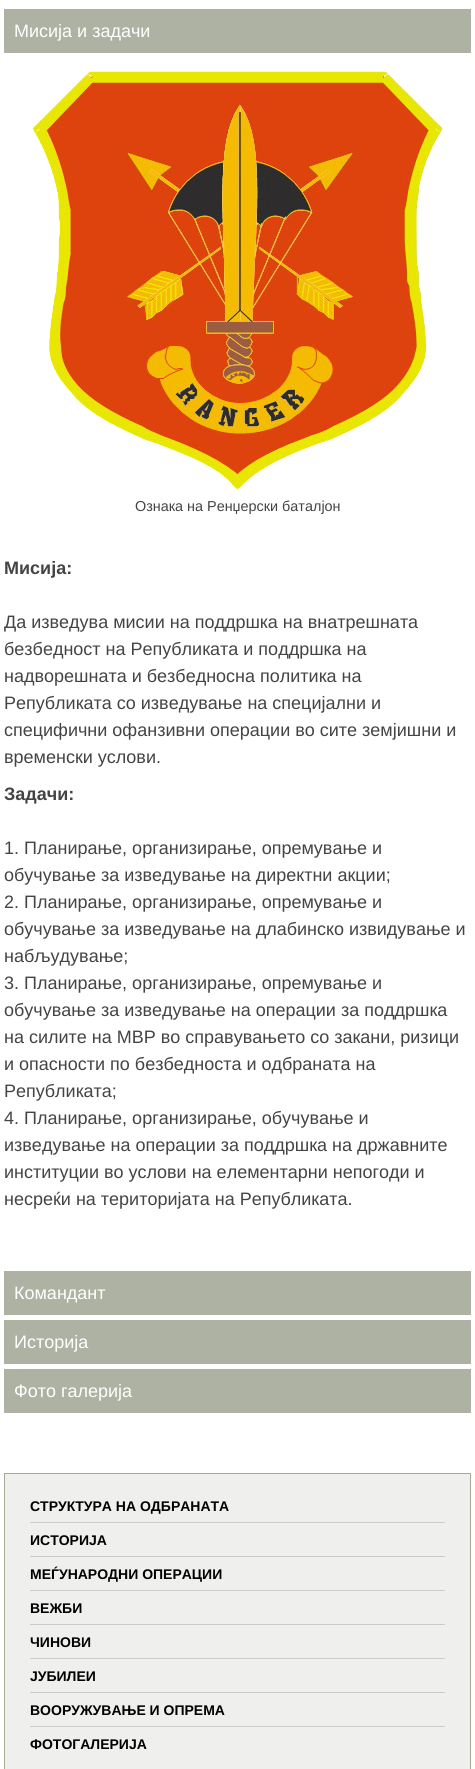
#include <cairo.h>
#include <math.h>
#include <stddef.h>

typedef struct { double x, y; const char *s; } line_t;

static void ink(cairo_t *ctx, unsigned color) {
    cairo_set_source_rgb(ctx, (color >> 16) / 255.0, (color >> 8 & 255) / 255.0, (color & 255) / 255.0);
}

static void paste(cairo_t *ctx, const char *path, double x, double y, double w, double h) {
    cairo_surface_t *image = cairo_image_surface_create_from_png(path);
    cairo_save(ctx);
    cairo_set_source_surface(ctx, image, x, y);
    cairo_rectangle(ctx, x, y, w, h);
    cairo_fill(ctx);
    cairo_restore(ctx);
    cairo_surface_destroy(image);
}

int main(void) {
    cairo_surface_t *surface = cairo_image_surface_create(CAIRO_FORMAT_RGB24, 475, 1769);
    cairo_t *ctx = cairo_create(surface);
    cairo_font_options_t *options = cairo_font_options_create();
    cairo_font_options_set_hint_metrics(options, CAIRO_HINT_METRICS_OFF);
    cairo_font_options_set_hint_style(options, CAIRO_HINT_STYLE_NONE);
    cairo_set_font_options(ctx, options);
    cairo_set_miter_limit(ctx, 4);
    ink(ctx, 0xFFFFFF);
    cairo_paint(ctx);
    ink(ctx, 0xADB2A2);
    cairo_rectangle(ctx, 4, 9, 467, 44);
    cairo_fill(ctx);
    cairo_select_font_face(ctx, "Liberation Sans", CAIRO_FONT_SLANT_NORMAL, CAIRO_FONT_WEIGHT_NORMAL);
    cairo_set_font_size(ctx, 18);
    ink(ctx, 0xFFFFFF);
    cairo_move_to(ctx, 14, 37);
    cairo_show_text(ctx, "Мисија и задачи");
    paste(ctx, "media/1.png", 32, 71, 411, 419);
    cairo_set_font_size(ctx, 14.4);
    ink(ctx, 0x444444);
    cairo_move_to(ctx, 135, 511);
    cairo_show_text(ctx, "Ознака на Ренџерски баталјон");
    cairo_select_font_face(ctx, "Liberation Sans", CAIRO_FONT_SLANT_NORMAL, CAIRO_FONT_WEIGHT_BOLD);
    cairo_set_font_size(ctx, 18);
    cairo_move_to(ctx, 4, 574);
    cairo_show_text(ctx, "Мисија:");
    cairo_select_font_face(ctx, "Liberation Sans", CAIRO_FONT_SLANT_NORMAL, CAIRO_FONT_WEIGHT_NORMAL);
    {
        static const line_t items[] = {
            {4, 628, "Да изведува мисии на поддршка на внатрешната"},
            {4, 655, "безбедност на Републиката и поддршка на"},
            {4, 682, "надворешната и безбедносна политика на"},
            {4, 709, "Републиката со изведување на специјални и"},
            {4, 736, "специфични офанзивни операции во сите земјишни и"},
            {4, 763, "временски услови."},
        };
        for (size_t i = 0; i < sizeof items / sizeof *items; i++) {
            cairo_move_to(ctx, items[i].x, items[i].y);
            cairo_show_text(ctx, items[i].s);
        }
    }
    cairo_select_font_face(ctx, "Liberation Sans", CAIRO_FONT_SLANT_NORMAL, CAIRO_FONT_WEIGHT_BOLD);
    cairo_move_to(ctx, 4, 800);
    cairo_show_text(ctx, "Задачи:");
    cairo_select_font_face(ctx, "Liberation Sans", CAIRO_FONT_SLANT_NORMAL, CAIRO_FONT_WEIGHT_NORMAL);
    {
        static const line_t items[] = {
            {4, 854, "1. Планирање, организирање, опремување и"},
            {4, 881, "обучување за изведување на директни акции;"},
            {4, 908, "2. Планирање, организирање, опремување и"},
            {4, 935, "обучување за изведување на длабинско извидување и"},
            {4, 962, "набљудување;"},
            {4, 989, "3. Планирање, организирање, опремување и"},
            {4, 1016, "обучување за изведување на операции за поддршка"},
            {4, 1043, "на силите на МВР во справувањето со закани, ризици"},
            {4, 1070, "и опасности по безбедноста и одбраната на"},
            {4, 1097, "Републиката;"},
            {4, 1124, "4. Планирање, организирање, обучување и"},
            {4, 1151, "изведување на операции за поддршка на државните"},
            {4, 1178, "институции во услови на елементарни непогоди и"},
            {4, 1205, "несреќи на територијата на Републиката."},
        };
        for (size_t i = 0; i < sizeof items / sizeof *items; i++) {
            cairo_move_to(ctx, items[i].x, items[i].y);
            cairo_show_text(ctx, items[i].s);
        }
    }
    ink(ctx, 0xADB2A2);
    cairo_rectangle(ctx, 4, 1271, 467, 44);
    cairo_fill(ctx);
    ink(ctx, 0xFFFFFF);
    cairo_move_to(ctx, 14, 1299);
    cairo_show_text(ctx, "Командант");
    ink(ctx, 0xADB2A2);
    cairo_rectangle(ctx, 4, 1320, 467, 44);
    cairo_fill(ctx);
    ink(ctx, 0xFFFFFF);
    cairo_move_to(ctx, 14, 1348);
    cairo_show_text(ctx, "Историја");
    ink(ctx, 0xADB2A2);
    cairo_rectangle(ctx, 4, 1369, 467, 44);
    cairo_fill(ctx);
    ink(ctx, 0xFFFFFF);
    cairo_move_to(ctx, 14, 1397);
    cairo_show_text(ctx, "Фото галерија");
    ink(ctx, 0xEFF0ED);
    cairo_rectangle(ctx, 4.5, 1473.5, 466, 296);
    cairo_fill_preserve(ctx);
    ink(ctx, 0xA5AA99);
    cairo_set_line_width(ctx, 1);
    cairo_stroke(ctx);
    cairo_select_font_face(ctx, "Liberation Sans", CAIRO_FONT_SLANT_NORMAL, CAIRO_FONT_WEIGHT_BOLD);
    cairo_set_font_size(ctx, 14);
    ink(ctx, 0x000000);
    cairo_move_to(ctx, 30, 1511);
    cairo_show_text(ctx, "СТРУКТУРА НА ОДБРАНАТА");
    ink(ctx, 0xCBCCC9);
    cairo_rectangle(ctx, 30, 1522, 415, 1);
    cairo_fill(ctx);
    ink(ctx, 0x000000);
    cairo_move_to(ctx, 30, 1545);
    cairo_show_text(ctx, "ИСТОРИЈА");
    ink(ctx, 0xCBCCC9);
    cairo_rectangle(ctx, 30, 1556, 415, 1);
    cairo_fill(ctx);
    ink(ctx, 0x000000);
    cairo_move_to(ctx, 30, 1579);
    cairo_show_text(ctx, "МЕЃУНАРОДНИ ОПЕРАЦИИ");
    ink(ctx, 0xCBCCC9);
    cairo_rectangle(ctx, 30, 1590, 415, 1);
    cairo_fill(ctx);
    ink(ctx, 0x000000);
    cairo_move_to(ctx, 30, 1613);
    cairo_show_text(ctx, "ВЕЖБИ");
    ink(ctx, 0xCBCCC9);
    cairo_rectangle(ctx, 30, 1624, 415, 1);
    cairo_fill(ctx);
    ink(ctx, 0x000000);
    cairo_move_to(ctx, 30, 1647);
    cairo_show_text(ctx, "ЧИНОВИ");
    ink(ctx, 0xCBCCC9);
    cairo_rectangle(ctx, 30, 1658, 415, 1);
    cairo_fill(ctx);
    ink(ctx, 0x000000);
    cairo_move_to(ctx, 30, 1681);
    cairo_show_text(ctx, "ЈУБИЛЕИ");
    ink(ctx, 0xCBCCC9);
    cairo_rectangle(ctx, 30, 1692, 415, 1);
    cairo_fill(ctx);
    ink(ctx, 0x000000);
    cairo_move_to(ctx, 30, 1715);
    cairo_show_text(ctx, "ВООРУЖУВАЊЕ И ОПРЕМА");
    ink(ctx, 0xCBCCC9);
    cairo_rectangle(ctx, 30, 1726, 415, 1);
    cairo_fill(ctx);
    ink(ctx, 0x000000);
    cairo_move_to(ctx, 30, 1749);
    cairo_show_text(ctx, "ФОТОГАЛЕРИЈА");
    cairo_surface_write_to_png(surface, "image.png");
    cairo_font_options_destroy(options);
    cairo_destroy(ctx);
    cairo_surface_destroy(surface);
    return 0;
}
